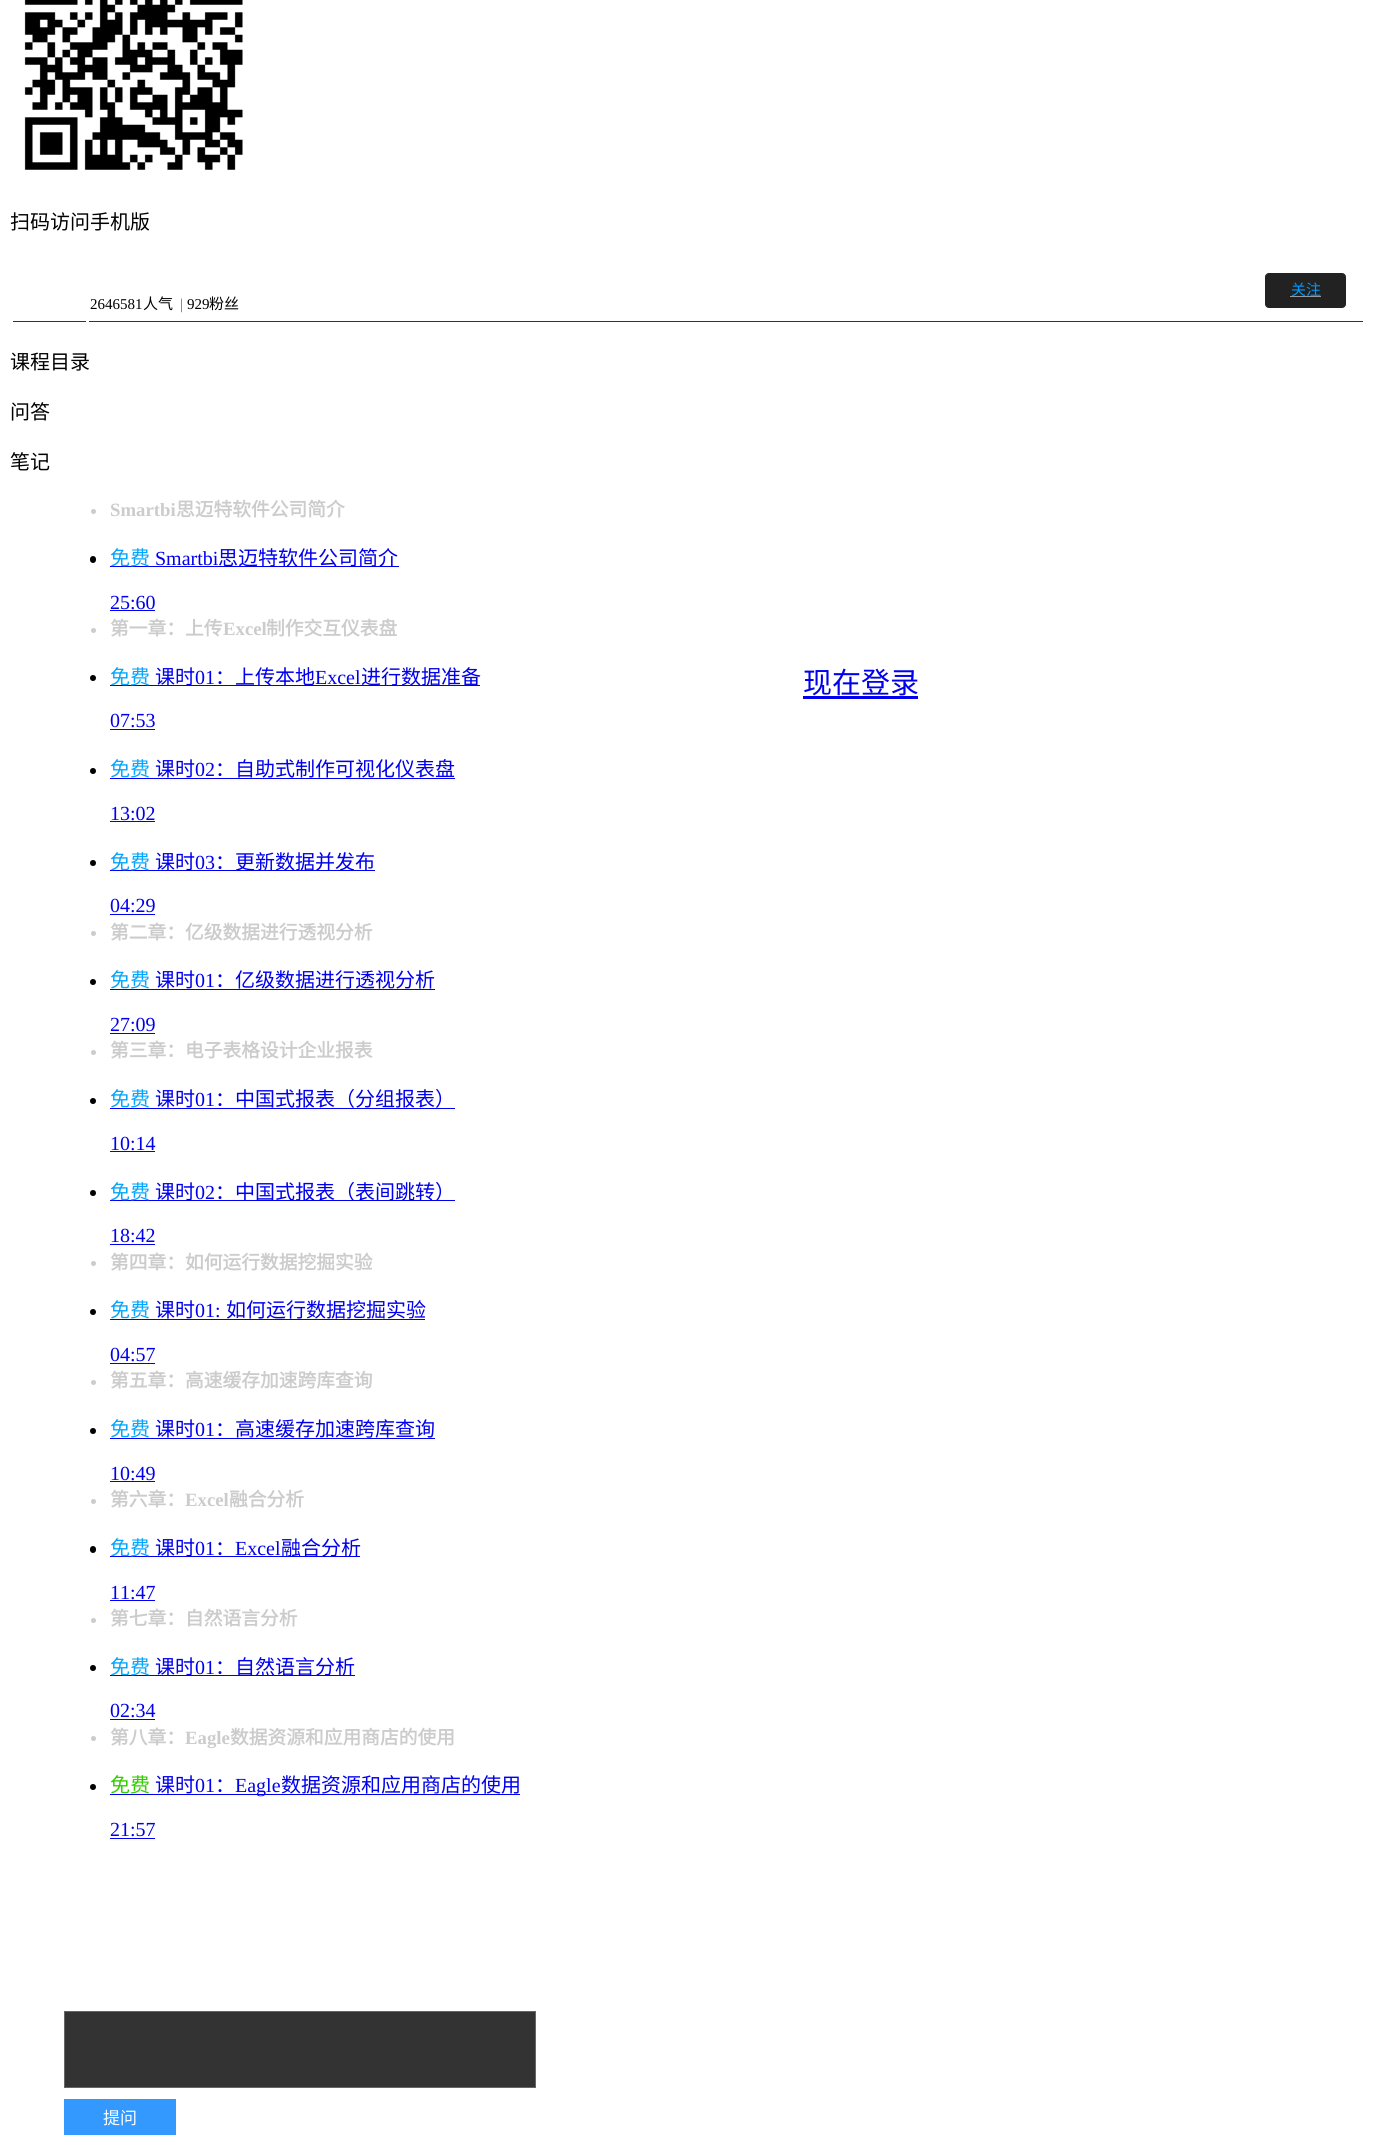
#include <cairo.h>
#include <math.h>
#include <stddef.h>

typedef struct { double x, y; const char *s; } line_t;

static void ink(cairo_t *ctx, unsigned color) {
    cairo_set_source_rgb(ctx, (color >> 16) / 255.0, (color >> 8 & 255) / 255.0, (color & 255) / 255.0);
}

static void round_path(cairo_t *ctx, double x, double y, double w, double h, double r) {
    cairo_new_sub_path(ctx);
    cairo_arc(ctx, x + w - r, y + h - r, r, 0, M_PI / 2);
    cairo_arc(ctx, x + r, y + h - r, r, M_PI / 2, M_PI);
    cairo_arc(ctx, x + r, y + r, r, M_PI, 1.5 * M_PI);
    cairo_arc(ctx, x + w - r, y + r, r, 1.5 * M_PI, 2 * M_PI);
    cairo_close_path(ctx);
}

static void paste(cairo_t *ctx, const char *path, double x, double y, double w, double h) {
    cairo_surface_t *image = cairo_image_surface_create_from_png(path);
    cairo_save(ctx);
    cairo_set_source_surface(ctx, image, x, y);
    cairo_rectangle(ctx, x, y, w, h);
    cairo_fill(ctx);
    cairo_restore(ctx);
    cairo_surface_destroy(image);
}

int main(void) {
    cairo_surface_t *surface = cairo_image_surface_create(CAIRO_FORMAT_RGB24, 1375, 2156);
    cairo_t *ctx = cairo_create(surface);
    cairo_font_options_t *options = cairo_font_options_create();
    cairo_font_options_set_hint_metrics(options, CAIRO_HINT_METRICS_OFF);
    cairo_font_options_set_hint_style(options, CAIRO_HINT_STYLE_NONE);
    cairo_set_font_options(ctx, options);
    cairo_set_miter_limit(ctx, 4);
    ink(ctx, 0xFFFFFF);
    cairo_paint(ctx);
    paste(ctx, "media/1.png", 24, 0, 219, 170);
    cairo_select_font_face(ctx, "Noto Sans CJK SC", CAIRO_FONT_SLANT_NORMAL, CAIRO_FONT_WEIGHT_NORMAL);
    cairo_set_font_size(ctx, 20);
    ink(ctx, 0x000000);
    cairo_move_to(ctx, 10, 229);
    cairo_show_text(ctx, "扫码访问手机版");
    cairo_set_font_size(ctx, 29);
    ink(ctx, 0x0000EE);
    cairo_move_to(ctx, 803, 693);
    cairo_show_text(ctx, "现在登录");
    cairo_rectangle(ctx, 803, 696, 115, 3);
    cairo_fill(ctx);
    ink(ctx, 0x333333);
    cairo_rectangle(ctx, 89, 321, 1274, 1);
    cairo_fill(ctx);
    ink(ctx, 0x222222);
    round_path(ctx, 1265.5, 273.5, 80, 34, 3.5);
    cairo_fill_preserve(ctx);
    cairo_set_line_width(ctx, 1);
    cairo_stroke(ctx);
    ink(ctx, 0x999999);
    cairo_rectangle(ctx, 1290, 296, 31, 1);
    cairo_fill(ctx);
    cairo_set_font_size(ctx, 15);
    ink(ctx, 0x0099FF);
    cairo_move_to(ctx, 1291, 295);
    cairo_show_text(ctx, "关注");
    cairo_select_font_face(ctx, "Liberation Serif", CAIRO_FONT_SLANT_NORMAL, CAIRO_FONT_WEIGHT_NORMAL);
    ink(ctx, 0x000000);
    cairo_move_to(ctx, 90, 309);
    cairo_show_text(ctx, "2646581");
    cairo_select_font_face(ctx, "Noto Sans CJK SC", CAIRO_FONT_SLANT_NORMAL, CAIRO_FONT_WEIGHT_NORMAL);
    cairo_move_to(ctx, 143, 309);
    cairo_show_text(ctx, "人气");
    cairo_select_font_face(ctx, "Liberation Serif", CAIRO_FONT_SLANT_NORMAL, CAIRO_FONT_WEIGHT_NORMAL);
    ink(ctx, 0x666666);
    cairo_move_to(ctx, 180, 309);
    cairo_show_text(ctx, "|");
    ink(ctx, 0x000000);
    cairo_move_to(ctx, 187, 309);
    cairo_show_text(ctx, "929");
    cairo_select_font_face(ctx, "Noto Sans CJK SC", CAIRO_FONT_SLANT_NORMAL, CAIRO_FONT_WEIGHT_NORMAL);
    cairo_move_to(ctx, 209, 309);
    cairo_show_text(ctx, "粉丝");
    ink(ctx, 0x333333);
    cairo_rectangle(ctx, 13, 321, 73, 1);
    cairo_fill(ctx);
    cairo_set_font_size(ctx, 20);
    ink(ctx, 0x000000);
    {
        static const line_t items[] = {
            {10, 369, "课程目录"},
            {10, 419, "问答"},
            {10, 469, "笔记"},
        };
        for (size_t i = 0; i < sizeof items / sizeof *items; i++) {
            cairo_move_to(ctx, items[i].x, items[i].y);
            cairo_show_text(ctx, items[i].s);
        }
    }
    ink(ctx, 0xCCCCCC);
    cairo_new_path(ctx);
    cairo_arc(ctx, 93.5, 511.5, 2.5, 0, 2 * M_PI);
    cairo_fill(ctx);
    cairo_select_font_face(ctx, "Liberation Serif", CAIRO_FONT_SLANT_NORMAL, CAIRO_FONT_WEIGHT_BOLD);
    cairo_set_font_size(ctx, 18.75);
    cairo_move_to(ctx, 110, 516);
    cairo_show_text(ctx, "Smartbi");
    cairo_select_font_face(ctx, "Noto Sans CJK SC", CAIRO_FONT_SLANT_NORMAL, CAIRO_FONT_WEIGHT_BOLD);
    cairo_move_to(ctx, 176, 516);
    cairo_show_text(ctx, "思迈特软件公司简介");
    ink(ctx, 0x000000);
    round_path(ctx, 90, 556, 6, 7, 3);
    cairo_fill(ctx);
    ink(ctx, 0x0000EE);
    cairo_rectangle(ctx, 110, 566, 289, 1);
    cairo_fill(ctx);
    cairo_select_font_face(ctx, "Noto Sans CJK SC", CAIRO_FONT_SLANT_NORMAL, CAIRO_FONT_WEIGHT_NORMAL);
    cairo_set_font_size(ctx, 20);
    ink(ctx, 0x03A6FE);
    cairo_move_to(ctx, 110, 565);
    cairo_show_text(ctx, "免费");
    cairo_select_font_face(ctx, "Liberation Serif", CAIRO_FONT_SLANT_NORMAL, CAIRO_FONT_WEIGHT_NORMAL);
    ink(ctx, 0x0000EE);
    cairo_move_to(ctx, 155, 565);
    cairo_show_text(ctx, "Smartbi");
    cairo_select_font_face(ctx, "Noto Sans CJK SC", CAIRO_FONT_SLANT_NORMAL, CAIRO_FONT_WEIGHT_NORMAL);
    cairo_move_to(ctx, 218, 565);
    cairo_show_text(ctx, "思迈特软件公司简介");
    cairo_select_font_face(ctx, "Liberation Serif", CAIRO_FONT_SLANT_NORMAL, CAIRO_FONT_WEIGHT_NORMAL);
    cairo_move_to(ctx, 110, 609);
    cairo_show_text(ctx, "25:60");
    cairo_rectangle(ctx, 110, 610, 45, 1);
    cairo_fill(ctx);
    ink(ctx, 0xCCCCCC);
    cairo_arc(ctx, 93.5, 630.5, 2.5, 0, 2 * M_PI);
    cairo_fill(ctx);
    cairo_select_font_face(ctx, "Noto Sans CJK SC", CAIRO_FONT_SLANT_NORMAL, CAIRO_FONT_WEIGHT_BOLD);
    cairo_set_font_size(ctx, 18.75);
    cairo_move_to(ctx, 110, 635);
    cairo_show_text(ctx, "第一章：上传");
    cairo_select_font_face(ctx, "Liberation Serif", CAIRO_FONT_SLANT_NORMAL, CAIRO_FONT_WEIGHT_BOLD);
    cairo_move_to(ctx, 223, 635);
    cairo_show_text(ctx, "Excel");
    cairo_select_font_face(ctx, "Noto Sans CJK SC", CAIRO_FONT_SLANT_NORMAL, CAIRO_FONT_WEIGHT_BOLD);
    cairo_move_to(ctx, 266, 635);
    cairo_show_text(ctx, "制作交互仪表盘");
    ink(ctx, 0x000000);
    cairo_new_path(ctx);
    cairo_arc(ctx, 93, 678, 3, 0, 2 * M_PI);
    cairo_fill(ctx);
    ink(ctx, 0x0000EE);
    cairo_rectangle(ctx, 110, 685, 370, 1);
    cairo_fill(ctx);
    cairo_select_font_face(ctx, "Noto Sans CJK SC", CAIRO_FONT_SLANT_NORMAL, CAIRO_FONT_WEIGHT_NORMAL);
    cairo_set_font_size(ctx, 20);
    ink(ctx, 0x03A6FE);
    cairo_move_to(ctx, 110, 684);
    cairo_show_text(ctx, "免费");
    ink(ctx, 0x0000EE);
    cairo_move_to(ctx, 155, 684);
    cairo_show_text(ctx, "课时");
    cairo_select_font_face(ctx, "Liberation Serif", CAIRO_FONT_SLANT_NORMAL, CAIRO_FONT_WEIGHT_NORMAL);
    cairo_move_to(ctx, 195, 684);
    cairo_show_text(ctx, "01");
    cairo_select_font_face(ctx, "Noto Sans CJK SC", CAIRO_FONT_SLANT_NORMAL, CAIRO_FONT_WEIGHT_NORMAL);
    cairo_move_to(ctx, 215, 684);
    cairo_show_text(ctx, "：上传本地");
    cairo_select_font_face(ctx, "Liberation Serif", CAIRO_FONT_SLANT_NORMAL, CAIRO_FONT_WEIGHT_NORMAL);
    cairo_move_to(ctx, 315, 684);
    cairo_show_text(ctx, "Excel");
    cairo_select_font_face(ctx, "Noto Sans CJK SC", CAIRO_FONT_SLANT_NORMAL, CAIRO_FONT_WEIGHT_NORMAL);
    cairo_move_to(ctx, 361, 684);
    cairo_show_text(ctx, "进行数据准备");
    cairo_select_font_face(ctx, "Liberation Serif", CAIRO_FONT_SLANT_NORMAL, CAIRO_FONT_WEIGHT_NORMAL);
    cairo_move_to(ctx, 110, 727);
    cairo_show_text(ctx, "07:53");
    cairo_rectangle(ctx, 110, 729, 45, 1);
    cairo_fill(ctx);
    ink(ctx, 0x000000);
    cairo_arc(ctx, 93, 771, 3, 0, 2 * M_PI);
    cairo_fill(ctx);
    cairo_select_font_face(ctx, "Noto Sans CJK SC", CAIRO_FONT_SLANT_NORMAL, CAIRO_FONT_WEIGHT_NORMAL);
    ink(ctx, 0x03A6FE);
    cairo_move_to(ctx, 110, 776);
    cairo_show_text(ctx, "免费");
    ink(ctx, 0x0000EE);
    cairo_rectangle(ctx, 110, 778, 345, 1);
    cairo_fill(ctx);
    cairo_move_to(ctx, 155, 776);
    cairo_show_text(ctx, "课时");
    cairo_select_font_face(ctx, "Liberation Serif", CAIRO_FONT_SLANT_NORMAL, CAIRO_FONT_WEIGHT_NORMAL);
    cairo_move_to(ctx, 195, 776);
    cairo_show_text(ctx, "02");
    cairo_select_font_face(ctx, "Noto Sans CJK SC", CAIRO_FONT_SLANT_NORMAL, CAIRO_FONT_WEIGHT_NORMAL);
    cairo_move_to(ctx, 215, 776);
    cairo_show_text(ctx, "：自助式制作可视化仪表盘");
    cairo_select_font_face(ctx, "Liberation Serif", CAIRO_FONT_SLANT_NORMAL, CAIRO_FONT_WEIGHT_NORMAL);
    cairo_move_to(ctx, 110, 820);
    cairo_show_text(ctx, "13:02");
    cairo_rectangle(ctx, 110, 821, 45, 1);
    cairo_fill(ctx);
    ink(ctx, 0x000000);
    cairo_arc(ctx, 93, 863, 3, 0, 2 * M_PI);
    cairo_fill(ctx);
    ink(ctx, 0x0000EE);
    cairo_rectangle(ctx, 110, 870, 265, 1);
    cairo_fill(ctx);
    cairo_select_font_face(ctx, "Noto Sans CJK SC", CAIRO_FONT_SLANT_NORMAL, CAIRO_FONT_WEIGHT_NORMAL);
    ink(ctx, 0x03A6FE);
    cairo_move_to(ctx, 110, 869);
    cairo_show_text(ctx, "免费");
    ink(ctx, 0x0000EE);
    cairo_move_to(ctx, 155, 869);
    cairo_show_text(ctx, "课时");
    cairo_select_font_face(ctx, "Liberation Serif", CAIRO_FONT_SLANT_NORMAL, CAIRO_FONT_WEIGHT_NORMAL);
    cairo_move_to(ctx, 195, 869);
    cairo_show_text(ctx, "03");
    cairo_select_font_face(ctx, "Noto Sans CJK SC", CAIRO_FONT_SLANT_NORMAL, CAIRO_FONT_WEIGHT_NORMAL);
    cairo_move_to(ctx, 215, 869);
    cairo_show_text(ctx, "：更新数据并发布");
    cairo_select_font_face(ctx, "Liberation Serif", CAIRO_FONT_SLANT_NORMAL, CAIRO_FONT_WEIGHT_NORMAL);
    cairo_move_to(ctx, 110, 912);
    cairo_show_text(ctx, "04:29");
    cairo_rectangle(ctx, 110, 914, 45, 1);
    cairo_fill(ctx);
    ink(ctx, 0xCCCCCC);
    cairo_arc(ctx, 93.5, 933.5, 2.5, 0, 2 * M_PI);
    cairo_fill(ctx);
    cairo_select_font_face(ctx, "Noto Sans CJK SC", CAIRO_FONT_SLANT_NORMAL, CAIRO_FONT_WEIGHT_BOLD);
    cairo_set_font_size(ctx, 18.75);
    cairo_move_to(ctx, 110, 939);
    cairo_show_text(ctx, "第二章：亿级数据进行透视分析");
    ink(ctx, 0x000000);
    cairo_new_path(ctx);
    cairo_arc(ctx, 93, 982, 3, 0, 2 * M_PI);
    cairo_fill(ctx);
    cairo_select_font_face(ctx, "Noto Sans CJK SC", CAIRO_FONT_SLANT_NORMAL, CAIRO_FONT_WEIGHT_NORMAL);
    cairo_set_font_size(ctx, 20);
    ink(ctx, 0x03A6FE);
    cairo_move_to(ctx, 110, 987);
    cairo_show_text(ctx, "免费");
    ink(ctx, 0x0000EE);
    cairo_rectangle(ctx, 110, 989, 325, 1);
    cairo_fill(ctx);
    cairo_move_to(ctx, 155, 987);
    cairo_show_text(ctx, "课时");
    cairo_select_font_face(ctx, "Liberation Serif", CAIRO_FONT_SLANT_NORMAL, CAIRO_FONT_WEIGHT_NORMAL);
    cairo_move_to(ctx, 195, 987);
    cairo_show_text(ctx, "01");
    cairo_select_font_face(ctx, "Noto Sans CJK SC", CAIRO_FONT_SLANT_NORMAL, CAIRO_FONT_WEIGHT_NORMAL);
    cairo_move_to(ctx, 215, 987);
    cairo_show_text(ctx, "：亿级数据进行透视分析");
    cairo_select_font_face(ctx, "Liberation Serif", CAIRO_FONT_SLANT_NORMAL, CAIRO_FONT_WEIGHT_NORMAL);
    cairo_move_to(ctx, 110, 1031);
    cairo_show_text(ctx, "27:09");
    cairo_rectangle(ctx, 110, 1033, 45, 1);
    cairo_fill(ctx);
    ink(ctx, 0xCCCCCC);
    cairo_arc(ctx, 93.5, 1052.5, 2.5, 0, 2 * M_PI);
    cairo_fill(ctx);
    cairo_select_font_face(ctx, "Noto Sans CJK SC", CAIRO_FONT_SLANT_NORMAL, CAIRO_FONT_WEIGHT_BOLD);
    cairo_set_font_size(ctx, 18.75);
    cairo_move_to(ctx, 110, 1057);
    cairo_show_text(ctx, "第三章：电子表格设计企业报表");
    ink(ctx, 0x000000);
    cairo_new_path(ctx);
    cairo_arc(ctx, 93, 1101, 3, 0, 2 * M_PI);
    cairo_fill(ctx);
    cairo_select_font_face(ctx, "Noto Sans CJK SC", CAIRO_FONT_SLANT_NORMAL, CAIRO_FONT_WEIGHT_NORMAL);
    cairo_set_font_size(ctx, 20);
    ink(ctx, 0x03A6FE);
    cairo_move_to(ctx, 110, 1106);
    cairo_show_text(ctx, "免费");
    ink(ctx, 0x0000EE);
    cairo_rectangle(ctx, 110, 1108, 345, 1);
    cairo_fill(ctx);
    cairo_move_to(ctx, 155, 1106);
    cairo_show_text(ctx, "课时");
    cairo_select_font_face(ctx, "Liberation Serif", CAIRO_FONT_SLANT_NORMAL, CAIRO_FONT_WEIGHT_NORMAL);
    cairo_move_to(ctx, 195, 1106);
    cairo_show_text(ctx, "01");
    cairo_select_font_face(ctx, "Noto Sans CJK SC", CAIRO_FONT_SLANT_NORMAL, CAIRO_FONT_WEIGHT_NORMAL);
    cairo_move_to(ctx, 215, 1106);
    cairo_show_text(ctx, "：中国式报表（分组报表）");
    cairo_select_font_face(ctx, "Liberation Serif", CAIRO_FONT_SLANT_NORMAL, CAIRO_FONT_WEIGHT_NORMAL);
    cairo_move_to(ctx, 110, 1150);
    cairo_show_text(ctx, "10:14");
    cairo_rectangle(ctx, 110, 1151, 45, 1);
    cairo_fill(ctx);
    ink(ctx, 0x000000);
    cairo_arc(ctx, 93, 1193, 3, 0, 2 * M_PI);
    cairo_fill(ctx);
    ink(ctx, 0x0000EE);
    cairo_rectangle(ctx, 110, 1200, 345, 1);
    cairo_fill(ctx);
    cairo_select_font_face(ctx, "Noto Sans CJK SC", CAIRO_FONT_SLANT_NORMAL, CAIRO_FONT_WEIGHT_NORMAL);
    ink(ctx, 0x03A6FE);
    cairo_move_to(ctx, 110, 1199);
    cairo_show_text(ctx, "免费");
    ink(ctx, 0x0000EE);
    cairo_move_to(ctx, 155, 1199);
    cairo_show_text(ctx, "课时");
    cairo_select_font_face(ctx, "Liberation Serif", CAIRO_FONT_SLANT_NORMAL, CAIRO_FONT_WEIGHT_NORMAL);
    cairo_move_to(ctx, 195, 1199);
    cairo_show_text(ctx, "02");
    cairo_select_font_face(ctx, "Noto Sans CJK SC", CAIRO_FONT_SLANT_NORMAL, CAIRO_FONT_WEIGHT_NORMAL);
    cairo_move_to(ctx, 215, 1199);
    cairo_show_text(ctx, "：中国式报表（表间跳转）");
    cairo_select_font_face(ctx, "Liberation Serif", CAIRO_FONT_SLANT_NORMAL, CAIRO_FONT_WEIGHT_NORMAL);
    cairo_move_to(ctx, 110, 1242);
    cairo_show_text(ctx, "18:42");
    cairo_rectangle(ctx, 110, 1244, 45, 1);
    cairo_fill(ctx);
    ink(ctx, 0xCCCCCC);
    cairo_arc(ctx, 93.5, 1263.5, 2.5, 0, 2 * M_PI);
    cairo_fill(ctx);
    cairo_select_font_face(ctx, "Noto Sans CJK SC", CAIRO_FONT_SLANT_NORMAL, CAIRO_FONT_WEIGHT_BOLD);
    cairo_set_font_size(ctx, 18.75);
    cairo_move_to(ctx, 110, 1269);
    cairo_show_text(ctx, "第四章：如何运行数据挖掘实验");
    ink(ctx, 0x000000);
    cairo_new_path(ctx);
    cairo_arc(ctx, 93, 1312, 3, 0, 2 * M_PI);
    cairo_fill(ctx);
    cairo_select_font_face(ctx, "Noto Sans CJK SC", CAIRO_FONT_SLANT_NORMAL, CAIRO_FONT_WEIGHT_NORMAL);
    cairo_set_font_size(ctx, 20);
    ink(ctx, 0x03A6FE);
    cairo_move_to(ctx, 110, 1317);
    cairo_show_text(ctx, "免费");
    ink(ctx, 0x0000EE);
    cairo_rectangle(ctx, 110, 1319, 315, 1);
    cairo_fill(ctx);
    cairo_move_to(ctx, 155, 1317);
    cairo_show_text(ctx, "课时");
    cairo_select_font_face(ctx, "Liberation Serif", CAIRO_FONT_SLANT_NORMAL, CAIRO_FONT_WEIGHT_NORMAL);
    cairo_move_to(ctx, 195, 1317);
    cairo_show_text(ctx, "01:");
    cairo_select_font_face(ctx, "Noto Sans CJK SC", CAIRO_FONT_SLANT_NORMAL, CAIRO_FONT_WEIGHT_NORMAL);
    cairo_move_to(ctx, 226, 1317);
    cairo_show_text(ctx, "如何运行数据挖掘实验");
    cairo_select_font_face(ctx, "Liberation Serif", CAIRO_FONT_SLANT_NORMAL, CAIRO_FONT_WEIGHT_NORMAL);
    cairo_move_to(ctx, 110, 1361);
    cairo_show_text(ctx, "04:57");
    cairo_rectangle(ctx, 110, 1363, 45, 1);
    cairo_fill(ctx);
    ink(ctx, 0xCCCCCC);
    cairo_arc(ctx, 93.5, 1382.5, 2.5, 0, 2 * M_PI);
    cairo_fill(ctx);
    cairo_select_font_face(ctx, "Noto Sans CJK SC", CAIRO_FONT_SLANT_NORMAL, CAIRO_FONT_WEIGHT_BOLD);
    cairo_set_font_size(ctx, 18.75);
    cairo_move_to(ctx, 110, 1387);
    cairo_show_text(ctx, "第五章：高速缓存加速跨库查询");
    ink(ctx, 0x000000);
    cairo_new_path(ctx);
    cairo_arc(ctx, 93, 1431, 3, 0, 2 * M_PI);
    cairo_fill(ctx);
    cairo_select_font_face(ctx, "Noto Sans CJK SC", CAIRO_FONT_SLANT_NORMAL, CAIRO_FONT_WEIGHT_NORMAL);
    cairo_set_font_size(ctx, 20);
    ink(ctx, 0x03A6FE);
    cairo_move_to(ctx, 110, 1436);
    cairo_show_text(ctx, "免费");
    ink(ctx, 0x0000EE);
    cairo_rectangle(ctx, 110, 1438, 325, 1);
    cairo_fill(ctx);
    cairo_move_to(ctx, 155, 1436);
    cairo_show_text(ctx, "课时");
    cairo_select_font_face(ctx, "Liberation Serif", CAIRO_FONT_SLANT_NORMAL, CAIRO_FONT_WEIGHT_NORMAL);
    cairo_move_to(ctx, 195, 1436);
    cairo_show_text(ctx, "01");
    cairo_select_font_face(ctx, "Noto Sans CJK SC", CAIRO_FONT_SLANT_NORMAL, CAIRO_FONT_WEIGHT_NORMAL);
    cairo_move_to(ctx, 215, 1436);
    cairo_show_text(ctx, "：高速缓存加速跨库查询");
    cairo_select_font_face(ctx, "Liberation Serif", CAIRO_FONT_SLANT_NORMAL, CAIRO_FONT_WEIGHT_NORMAL);
    cairo_move_to(ctx, 110, 1480);
    cairo_show_text(ctx, "10:49");
    cairo_rectangle(ctx, 110, 1481, 45, 1);
    cairo_fill(ctx);
    ink(ctx, 0xCCCCCC);
    cairo_arc(ctx, 93.5, 1501.5, 2.5, 0, 2 * M_PI);
    cairo_fill(ctx);
    cairo_select_font_face(ctx, "Noto Sans CJK SC", CAIRO_FONT_SLANT_NORMAL, CAIRO_FONT_WEIGHT_BOLD);
    cairo_set_font_size(ctx, 18.75);
    cairo_move_to(ctx, 110, 1506);
    cairo_show_text(ctx, "第六章：");
    cairo_select_font_face(ctx, "Liberation Serif", CAIRO_FONT_SLANT_NORMAL, CAIRO_FONT_WEIGHT_BOLD);
    cairo_move_to(ctx, 185, 1506);
    cairo_show_text(ctx, "Excel");
    cairo_select_font_face(ctx, "Noto Sans CJK SC", CAIRO_FONT_SLANT_NORMAL, CAIRO_FONT_WEIGHT_BOLD);
    cairo_move_to(ctx, 229, 1506);
    cairo_show_text(ctx, "融合分析");
    ink(ctx, 0x000000);
    round_path(ctx, 90, 1546, 6, 7, 3);
    cairo_fill(ctx);
    ink(ctx, 0x0000EE);
    cairo_rectangle(ctx, 110, 1556, 250, 1);
    cairo_fill(ctx);
    cairo_select_font_face(ctx, "Noto Sans CJK SC", CAIRO_FONT_SLANT_NORMAL, CAIRO_FONT_WEIGHT_NORMAL);
    cairo_set_font_size(ctx, 20);
    ink(ctx, 0x03A6FE);
    cairo_move_to(ctx, 110, 1555);
    cairo_show_text(ctx, "免费");
    ink(ctx, 0x0000EE);
    cairo_move_to(ctx, 155, 1555);
    cairo_show_text(ctx, "课时");
    cairo_select_font_face(ctx, "Liberation Serif", CAIRO_FONT_SLANT_NORMAL, CAIRO_FONT_WEIGHT_NORMAL);
    cairo_move_to(ctx, 195, 1555);
    cairo_show_text(ctx, "01");
    cairo_select_font_face(ctx, "Noto Sans CJK SC", CAIRO_FONT_SLANT_NORMAL, CAIRO_FONT_WEIGHT_NORMAL);
    cairo_move_to(ctx, 215, 1555);
    cairo_show_text(ctx, "：");
    cairo_select_font_face(ctx, "Liberation Serif", CAIRO_FONT_SLANT_NORMAL, CAIRO_FONT_WEIGHT_NORMAL);
    cairo_move_to(ctx, 235, 1555);
    cairo_show_text(ctx, "Excel");
    cairo_select_font_face(ctx, "Noto Sans CJK SC", CAIRO_FONT_SLANT_NORMAL, CAIRO_FONT_WEIGHT_NORMAL);
    cairo_move_to(ctx, 281, 1555);
    cairo_show_text(ctx, "融合分析");
    cairo_select_font_face(ctx, "Liberation Serif", CAIRO_FONT_SLANT_NORMAL, CAIRO_FONT_WEIGHT_NORMAL);
    cairo_move_to(ctx, 110, 1599);
    cairo_show_text(ctx, "11:47");
    cairo_rectangle(ctx, 110, 1600, 45, 1);
    cairo_fill(ctx);
    ink(ctx, 0xCCCCCC);
    cairo_arc(ctx, 93.5, 1620.5, 2.5, 0, 2 * M_PI);
    cairo_fill(ctx);
    cairo_select_font_face(ctx, "Noto Sans CJK SC", CAIRO_FONT_SLANT_NORMAL, CAIRO_FONT_WEIGHT_BOLD);
    cairo_set_font_size(ctx, 18.75);
    cairo_move_to(ctx, 110, 1625);
    cairo_show_text(ctx, "第七章：自然语言分析");
    ink(ctx, 0x000000);
    cairo_new_path(ctx);
    cairo_arc(ctx, 93, 1668, 3, 0, 2 * M_PI);
    cairo_fill(ctx);
    ink(ctx, 0x0000EE);
    cairo_rectangle(ctx, 110, 1675, 245, 1);
    cairo_fill(ctx);
    cairo_select_font_face(ctx, "Noto Sans CJK SC", CAIRO_FONT_SLANT_NORMAL, CAIRO_FONT_WEIGHT_NORMAL);
    cairo_set_font_size(ctx, 20);
    ink(ctx, 0x03A6FE);
    cairo_move_to(ctx, 110, 1674);
    cairo_show_text(ctx, "免费");
    ink(ctx, 0x0000EE);
    cairo_move_to(ctx, 155, 1674);
    cairo_show_text(ctx, "课时");
    cairo_select_font_face(ctx, "Liberation Serif", CAIRO_FONT_SLANT_NORMAL, CAIRO_FONT_WEIGHT_NORMAL);
    cairo_move_to(ctx, 195, 1674);
    cairo_show_text(ctx, "01");
    cairo_select_font_face(ctx, "Noto Sans CJK SC", CAIRO_FONT_SLANT_NORMAL, CAIRO_FONT_WEIGHT_NORMAL);
    cairo_move_to(ctx, 215, 1674);
    cairo_show_text(ctx, "：自然语言分析");
    cairo_select_font_face(ctx, "Liberation Serif", CAIRO_FONT_SLANT_NORMAL, CAIRO_FONT_WEIGHT_NORMAL);
    cairo_move_to(ctx, 110, 1717);
    cairo_show_text(ctx, "02:34");
    cairo_rectangle(ctx, 110, 1719, 45, 1);
    cairo_fill(ctx);
    ink(ctx, 0xCCCCCC);
    cairo_arc(ctx, 93.5, 1738.5, 2.5, 0, 2 * M_PI);
    cairo_fill(ctx);
    cairo_select_font_face(ctx, "Noto Sans CJK SC", CAIRO_FONT_SLANT_NORMAL, CAIRO_FONT_WEIGHT_BOLD);
    cairo_set_font_size(ctx, 18.75);
    cairo_move_to(ctx, 110, 1744);
    cairo_show_text(ctx, "第八章：");
    cairo_select_font_face(ctx, "Liberation Serif", CAIRO_FONT_SLANT_NORMAL, CAIRO_FONT_WEIGHT_BOLD);
    cairo_move_to(ctx, 185, 1744);
    cairo_show_text(ctx, "Eagle");
    cairo_select_font_face(ctx, "Noto Sans CJK SC", CAIRO_FONT_SLANT_NORMAL, CAIRO_FONT_WEIGHT_BOLD);
    cairo_move_to(ctx, 230, 1744);
    cairo_show_text(ctx, "数据资源和应用商店的使用");
    ink(ctx, 0x000000);
    cairo_new_path(ctx);
    cairo_arc(ctx, 93, 1787, 3, 0, 2 * M_PI);
    cairo_fill(ctx);
    cairo_select_font_face(ctx, "Noto Sans CJK SC", CAIRO_FONT_SLANT_NORMAL, CAIRO_FONT_WEIGHT_NORMAL);
    cairo_set_font_size(ctx, 20);
    ink(ctx, 0x33CC00);
    cairo_move_to(ctx, 110, 1792);
    cairo_show_text(ctx, "免费");
    ink(ctx, 0x0000EE);
    cairo_rectangle(ctx, 110, 1794, 410, 1);
    cairo_fill(ctx);
    cairo_move_to(ctx, 155, 1792);
    cairo_show_text(ctx, "课时");
    cairo_select_font_face(ctx, "Liberation Serif", CAIRO_FONT_SLANT_NORMAL, CAIRO_FONT_WEIGHT_NORMAL);
    cairo_move_to(ctx, 195, 1792);
    cairo_show_text(ctx, "01");
    cairo_select_font_face(ctx, "Noto Sans CJK SC", CAIRO_FONT_SLANT_NORMAL, CAIRO_FONT_WEIGHT_NORMAL);
    cairo_move_to(ctx, 215, 1792);
    cairo_show_text(ctx, "：");
    cairo_select_font_face(ctx, "Liberation Serif", CAIRO_FONT_SLANT_NORMAL, CAIRO_FONT_WEIGHT_NORMAL);
    cairo_move_to(ctx, 235, 1792);
    cairo_show_text(ctx, "Eagle");
    cairo_select_font_face(ctx, "Noto Sans CJK SC", CAIRO_FONT_SLANT_NORMAL, CAIRO_FONT_WEIGHT_NORMAL);
    cairo_move_to(ctx, 281, 1792);
    cairo_show_text(ctx, "数据资源和应用商店的使用");
    cairo_select_font_face(ctx, "Liberation Serif", CAIRO_FONT_SLANT_NORMAL, CAIRO_FONT_WEIGHT_NORMAL);
    cairo_move_to(ctx, 110, 1836);
    cairo_show_text(ctx, "21:57");
    cairo_rectangle(ctx, 110, 1838, 45, 1);
    cairo_fill(ctx);
    ink(ctx, 0x333333);
    cairo_rectangle(ctx, 64.5, 2011.5, 471, 76);
    cairo_fill_preserve(ctx);
    ink(ctx, 0x666666);
    cairo_stroke(ctx);
    ink(ctx, 0x3399FF);
    cairo_rectangle(ctx, 64, 2099, 112, 36);
    cairo_fill(ctx);
    cairo_select_font_face(ctx, "Noto Sans CJK SC", CAIRO_FONT_SLANT_NORMAL, CAIRO_FONT_WEIGHT_NORMAL);
    cairo_set_font_size(ctx, 17);
    ink(ctx, 0xFFFFFF);
    cairo_move_to(ctx, 103, 2124);
    cairo_show_text(ctx, "提问");
    cairo_surface_write_to_png(surface, "image.png");
    cairo_font_options_destroy(options);
    cairo_destroy(ctx);
    cairo_surface_destroy(surface);
    return 0;
}
